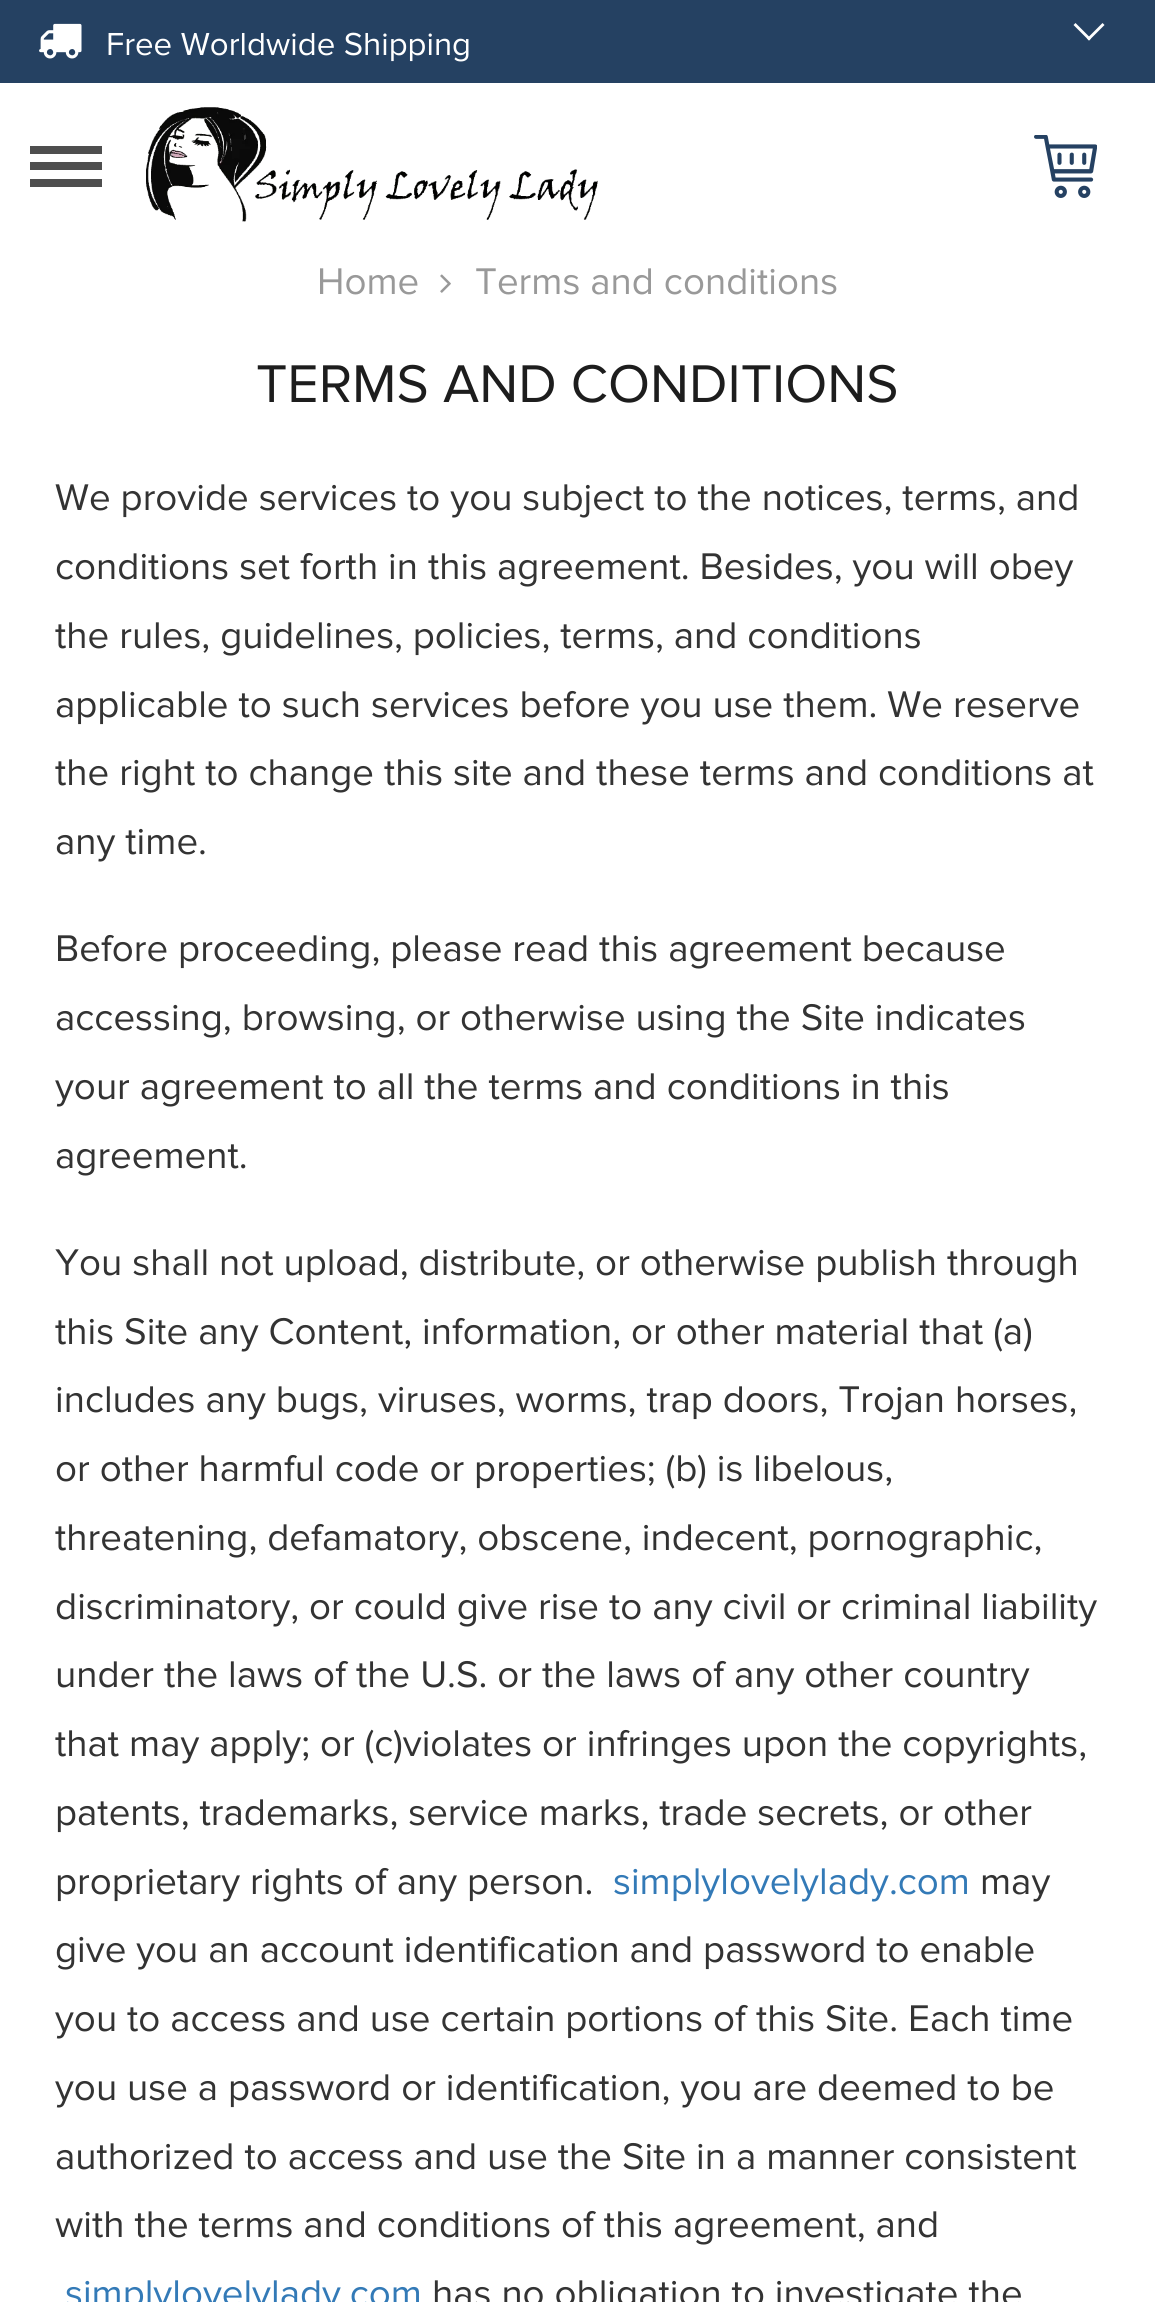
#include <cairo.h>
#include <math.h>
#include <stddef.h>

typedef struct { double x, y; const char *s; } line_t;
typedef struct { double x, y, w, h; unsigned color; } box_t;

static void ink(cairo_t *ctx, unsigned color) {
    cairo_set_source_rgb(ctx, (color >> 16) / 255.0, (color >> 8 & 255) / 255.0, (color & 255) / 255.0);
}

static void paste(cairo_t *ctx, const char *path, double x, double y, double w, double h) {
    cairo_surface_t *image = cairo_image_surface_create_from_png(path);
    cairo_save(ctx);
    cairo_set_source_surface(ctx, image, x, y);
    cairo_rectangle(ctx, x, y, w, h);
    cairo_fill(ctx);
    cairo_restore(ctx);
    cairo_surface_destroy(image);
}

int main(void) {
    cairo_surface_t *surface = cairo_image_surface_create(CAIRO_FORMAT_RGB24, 1155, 2302);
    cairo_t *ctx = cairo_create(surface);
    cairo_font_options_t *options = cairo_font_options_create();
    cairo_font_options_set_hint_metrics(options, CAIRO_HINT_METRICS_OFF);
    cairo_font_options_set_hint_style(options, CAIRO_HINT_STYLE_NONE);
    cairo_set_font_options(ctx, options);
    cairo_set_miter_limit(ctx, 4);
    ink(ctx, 0xFFFFFF);
    cairo_paint(ctx);
    ink(ctx, 0x254162);
    cairo_rectangle(ctx, 0, 0, 1155, 83);
    cairo_fill(ctx);
    cairo_select_font_face(ctx, "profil", CAIRO_FONT_SLANT_NORMAL, CAIRO_FONT_WEIGHT_NORMAL);
    cairo_set_font_size(ctx, 44);
    ink(ctx, 0xFFFFFF);
    cairo_move_to(ctx, 39, 55);
    cairo_show_text(ctx, "#");
    cairo_select_font_face(ctx, "Proxima Nova", CAIRO_FONT_SLANT_NORMAL, CAIRO_FONT_WEIGHT_NORMAL);
    cairo_set_font_size(ctx, 33);
    cairo_move_to(ctx, 106, 55);
    cairo_show_text(ctx, "Free Worldwide Shipping");
    cairo_new_path(ctx);
    cairo_move_to(ctx, 1104.5, 25);
    cairo_line_to(ctx, 1089, 40.5);
    cairo_line_to(ctx, 1087, 38.5);
    cairo_line_to(ctx, 1102.5, 23);
    cairo_close_path(ctx);
    cairo_fill(ctx);
    cairo_new_path(ctx);
    cairo_move_to(ctx, 1091, 38.5);
    cairo_line_to(ctx, 1089, 40.5);
    cairo_line_to(ctx, 1073.5, 25);
    cairo_line_to(ctx, 1075.5, 23);
    cairo_close_path(ctx);
    cairo_fill(ctx);
    {
        static const box_t items[] = {
            {30, 146, 72, 8, 0x4E4E4E},
            {30, 162, 72, 8, 0x4E4E4E},
            {30, 179, 72, 8, 0x4E4E4E},
        };
        for (size_t i = 0; i < sizeof items / sizeof *items; i++) {
            ink(ctx, items[i].color);
            cairo_rectangle(ctx, items[i].x, items[i].y, items[i].w, items[i].h);
            cairo_fill(ctx);
        }
    }
    paste(ctx, "media/1.png", 146, 107, 452, 115);
    paste(ctx, "media/2.png", 1034, 135, 63, 63);
    cairo_set_font_size(ctx, 38.5);
    ink(ctx, 0x999999);
    cairo_move_to(ctx, 317, 294);
    cairo_show_text(ctx, "Home");
    paste(ctx, "media/3.png", 440, 274, 11, 19);
    cairo_move_to(ctx, 475, 294);
    cairo_show_text(ctx, "Terms and conditions");
    cairo_set_font_size(ctx, 55);
    ink(ctx, 0x1D1D1D);
    cairo_move_to(ctx, 256, 402);
    cairo_show_text(ctx, "TERMS AND CONDITIONS");
    cairo_set_font_size(ctx, 38.5);
    ink(ctx, 0x333333);
    {
        static const line_t items[] = {
            {55, 510, "We provide services to you subject to the notices, terms, and"},
            {55, 579, "conditions set forth in this agreement. Besides, you will obey"},
            {55, 648, "the rules, guidelines, policies, terms, and conditions"},
            {55, 717, "applicable to such services before you use them. We reserve"},
            {55, 785, "the right to change this site and these terms and conditions at"},
            {55, 854, "any time."},
            {55, 961, "Before proceeding, please read this agreement because"},
            {55, 1030, "accessing, browsing, or otherwise using the Site indicates"},
            {55, 1099, "your agreement to all the terms and conditions in this"},
            {55, 1168, "agreement."},
            {55, 1275, "You shall not upload, distribute, or otherwise publish through"},
            {55, 1344, "this Site any Content, information, or other material that (a)"},
            {55, 1412, "includes any bugs, viruses, worms, trap doors, Trojan horses,"},
            {55, 1481, "or other harmful code or properties; (b) is libelous,"},
            {55, 1550, "threatening, defamatory, obscene, indecent, pornographic,"},
            {55, 1619, "discriminatory, or could give rise to any civil or criminal liability"},
            {55, 1687, "under the laws of the U.S. or the laws of any other country"},
            {55, 1756, "that may apply; or (c)violates or infringes upon the copyrights,"},
            {55, 1825, "patents, trademarks, service marks, trade secrets, or other"},
            {55, 1894, "proprietary rights of any person."},
        };
        for (size_t i = 0; i < sizeof items / sizeof *items; i++) {
            cairo_move_to(ctx, items[i].x, items[i].y);
            cairo_show_text(ctx, items[i].s);
        }
    }
    ink(ctx, 0x337AB7);
    cairo_move_to(ctx, 613, 1894);
    cairo_show_text(ctx, "simplylovelylady.com");
    ink(ctx, 0x333333);
    {
        static const line_t items[] = {
            {980, 1894, "may"},
            {55, 1962, "give you an account identification and password to enable"},
            {55, 2031, "you to access and use certain portions of this Site. Each time"},
            {55, 2100, "you use a password or identification, you are deemed to be"},
            {55, 2169, "authorized to access and use the Site in a manner consistent"},
            {55, 2237, "with the terms and conditions of this agreement, and"},
        };
        for (size_t i = 0; i < sizeof items / sizeof *items; i++) {
            cairo_move_to(ctx, items[i].x, items[i].y);
            cairo_show_text(ctx, items[i].s);
        }
    }
    ink(ctx, 0x337AB7);
    cairo_move_to(ctx, 65, 2306);
    cairo_show_text(ctx, "simplylovelylady.com");
    ink(ctx, 0x333333);
    cairo_move_to(ctx, 432, 2306);
    cairo_show_text(ctx, "has no obligation to investigate the");
    cairo_surface_write_to_png(surface, "image.png");
    cairo_font_options_destroy(options);
    cairo_destroy(ctx);
    cairo_surface_destroy(surface);
    return 0;
}
